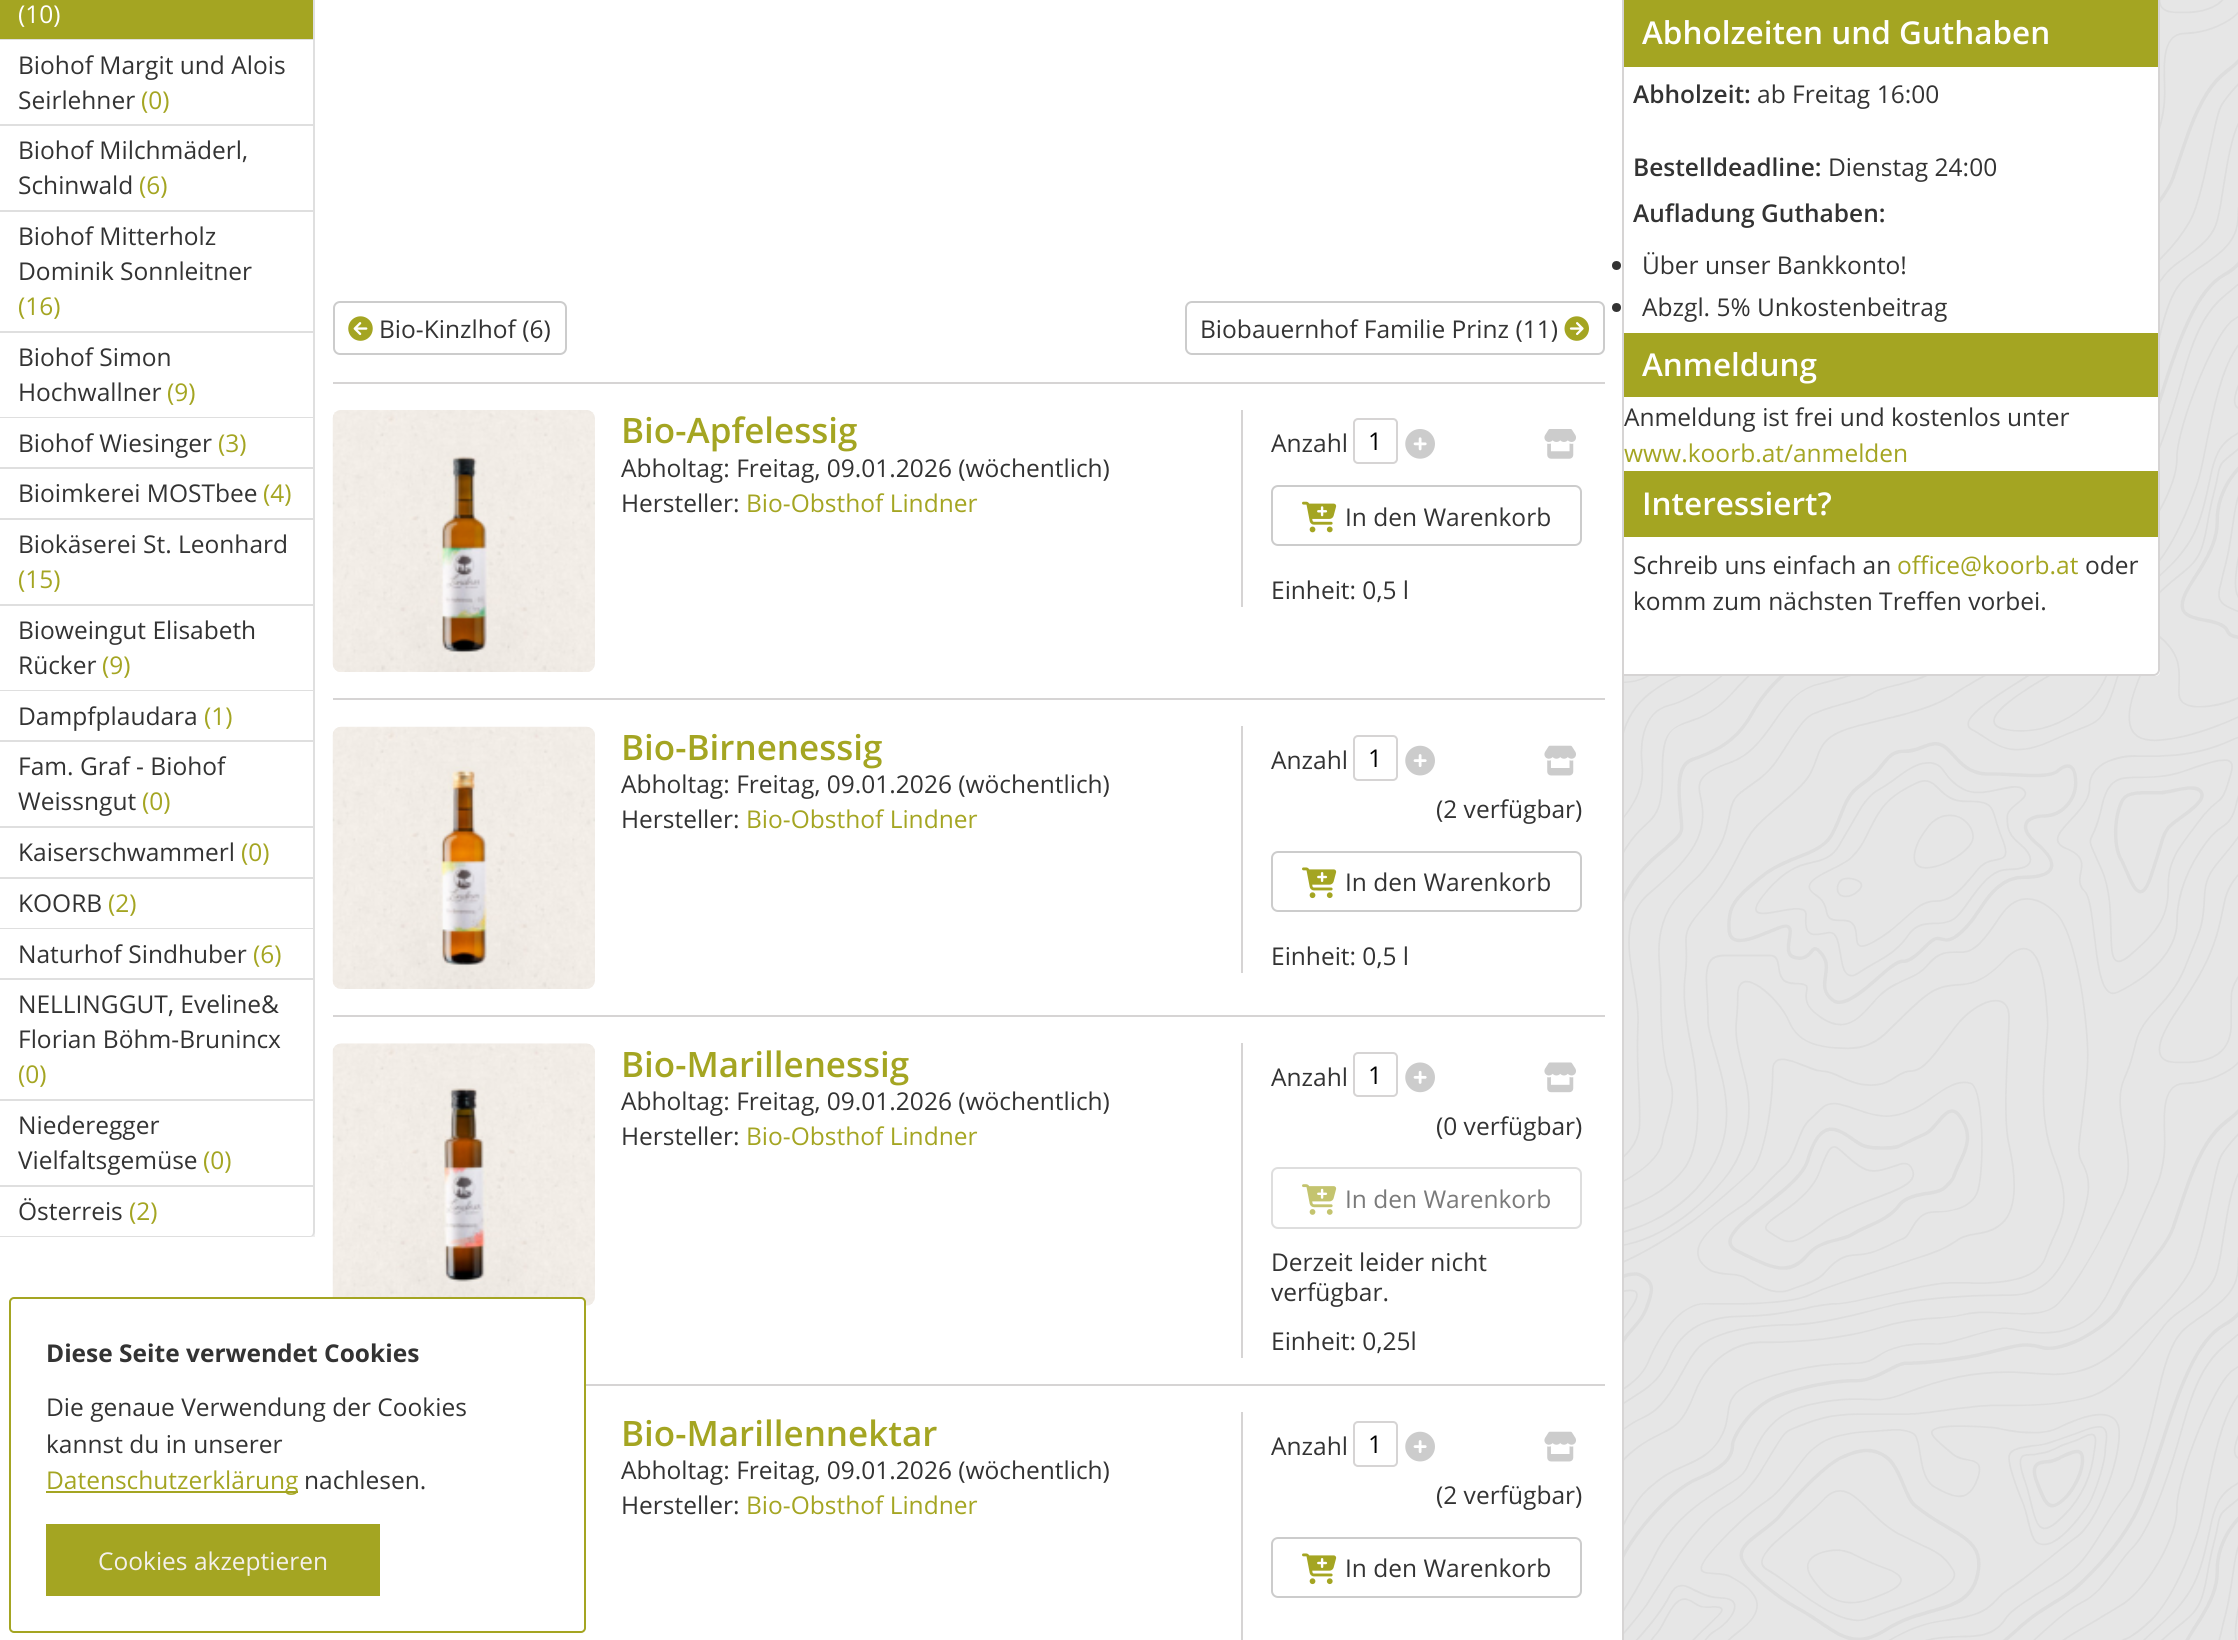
#include <cairo.h>
#include <math.h>
#include <stddef.h>

typedef struct { double x, y; const char *s; } line_t;
typedef struct { double x, y, w, h; unsigned color; } box_t;

static void ink(cairo_t *ctx, unsigned color) {
    cairo_set_source_rgb(ctx, (color >> 16) / 255.0, (color >> 8 & 255) / 255.0, (color & 255) / 255.0);
}

static void round_path(cairo_t *ctx, double x, double y, double w, double h, double r) {
    cairo_new_sub_path(ctx);
    cairo_arc(ctx, x + w - r, y + h - r, r, 0, M_PI / 2);
    cairo_arc(ctx, x + r, y + h - r, r, M_PI / 2, M_PI);
    cairo_arc(ctx, x + r, y + r, r, M_PI, 1.5 * M_PI);
    cairo_arc(ctx, x + w - r, y + r, r, 1.5 * M_PI, 2 * M_PI);
    cairo_close_path(ctx);
}

static void paste(cairo_t *ctx, const char *path, double x, double y, double w, double h) {
    cairo_surface_t *image = cairo_image_surface_create_from_png(path);
    cairo_save(ctx);
    cairo_set_source_surface(ctx, image, x, y);
    cairo_rectangle(ctx, x, y, w, h);
    cairo_fill(ctx);
    cairo_restore(ctx);
    cairo_surface_destroy(image);
}

int main(void) {
    cairo_surface_t *surface = cairo_image_surface_create(CAIRO_FORMAT_RGB24, 2238, 1640);
    cairo_t *ctx = cairo_create(surface);
    cairo_font_options_t *options = cairo_font_options_create();
    cairo_font_options_set_hint_metrics(options, CAIRO_HINT_METRICS_OFF);
    cairo_font_options_set_hint_style(options, CAIRO_HINT_STYLE_NONE);
    cairo_set_font_options(ctx, options);
    cairo_set_miter_limit(ctx, 4);
    ink(ctx, 0xE6E6E6);
    cairo_paint(ctx);
    paste(ctx, "media/1.png", 1624, 0, 614, 1640);
    {
        static const box_t items[] = {
            {0, 0, 1622, 1640, 0xFFFFFF},
            {1622, 0, 2, 1640, 0xD6D4D4},
            {310, 1232, 5, 5, 0xEFEFEF},
            {0, 0, 313, 39, 0xA4A522},
            {313, 0, 2, 1187, 0xDFDFDF},
            {0, 39, 315, 1, 0xDFDFDF},
        };
        for (size_t i = 0; i < sizeof items / sizeof *items; i++) {
            ink(ctx, items[i].color);
            cairo_rectangle(ctx, items[i].x, items[i].y, items[i].w, items[i].h);
            cairo_fill(ctx);
        }
    }
    cairo_select_font_face(ctx, "Open Sans", CAIRO_FONT_SLANT_NORMAL, CAIRO_FONT_WEIGHT_NORMAL);
    cairo_set_font_size(ctx, 24.5);
    ink(ctx, 0xFFFFFF);
    cairo_move_to(ctx, 18, 23);
    cairo_show_text(ctx, "(10)");
    ink(ctx, 0xDFDFDF);
    cairo_rectangle(ctx, 0, 124, 315, 2);
    cairo_fill(ctx);
    ink(ctx, 0x333333);
    cairo_move_to(ctx, 18, 74);
    cairo_show_text(ctx, "Biohof Margit und Alois");
    cairo_move_to(ctx, 18, 109);
    cairo_show_text(ctx, "Seirlehner");
    ink(ctx, 0xA4A522);
    cairo_move_to(ctx, 141, 109);
    cairo_show_text(ctx, "(0)");
    ink(ctx, 0xDFDFDF);
    cairo_rectangle(ctx, 0, 210, 315, 2);
    cairo_fill(ctx);
    ink(ctx, 0x333333);
    cairo_move_to(ctx, 18, 159);
    cairo_show_text(ctx, "Biohof Milchmäderl,");
    cairo_move_to(ctx, 18, 194);
    cairo_show_text(ctx, "Schinwald");
    ink(ctx, 0xA4A522);
    cairo_move_to(ctx, 139, 194);
    cairo_show_text(ctx, "(6)");
    ink(ctx, 0xDFDFDF);
    cairo_rectangle(ctx, 0, 331, 315, 2);
    cairo_fill(ctx);
    ink(ctx, 0x333333);
    cairo_move_to(ctx, 18, 245);
    cairo_show_text(ctx, "Biohof Mitterholz");
    cairo_move_to(ctx, 18, 280);
    cairo_show_text(ctx, "Dominik Sonnleitner");
    ink(ctx, 0xA4A522);
    cairo_move_to(ctx, 18, 315);
    cairo_show_text(ctx, "(16)");
    ink(ctx, 0xDFDFDF);
    cairo_rectangle(ctx, 0, 417, 315, 1);
    cairo_fill(ctx);
    ink(ctx, 0x333333);
    cairo_move_to(ctx, 18, 366);
    cairo_show_text(ctx, "Biohof Simon");
    cairo_move_to(ctx, 18, 401);
    cairo_show_text(ctx, "Hochwallner");
    ink(ctx, 0xA4A522);
    cairo_move_to(ctx, 167, 401);
    cairo_show_text(ctx, "(9)");
    ink(ctx, 0xDFDFDF);
    cairo_rectangle(ctx, 0, 467, 315, 2);
    cairo_fill(ctx);
    ink(ctx, 0x333333);
    cairo_move_to(ctx, 18, 452);
    cairo_show_text(ctx, "Biohof Wiesinger");
    ink(ctx, 0xA4A522);
    cairo_move_to(ctx, 218, 452);
    cairo_show_text(ctx, "(3)");
    ink(ctx, 0xDFDFDF);
    cairo_rectangle(ctx, 0, 518, 315, 2);
    cairo_fill(ctx);
    ink(ctx, 0x333333);
    cairo_move_to(ctx, 18, 502);
    cairo_show_text(ctx, "Bioimkerei MOSTbee");
    ink(ctx, 0xA4A522);
    cairo_move_to(ctx, 263, 502);
    cairo_show_text(ctx, "(4)");
    ink(ctx, 0xDFDFDF);
    cairo_rectangle(ctx, 0, 604, 315, 2);
    cairo_fill(ctx);
    ink(ctx, 0x333333);
    cairo_move_to(ctx, 18, 553);
    cairo_show_text(ctx, "Biokäserei St. Leonhard");
    ink(ctx, 0xA4A522);
    cairo_move_to(ctx, 18, 588);
    cairo_show_text(ctx, "(15)");
    ink(ctx, 0xDFDFDF);
    cairo_rectangle(ctx, 0, 690, 315, 1);
    cairo_fill(ctx);
    ink(ctx, 0x333333);
    cairo_move_to(ctx, 18, 639);
    cairo_show_text(ctx, "Bioweingut Elisabeth");
    cairo_move_to(ctx, 18, 674);
    cairo_show_text(ctx, "Rücker");
    ink(ctx, 0xA4A522);
    cairo_move_to(ctx, 102, 674);
    cairo_show_text(ctx, "(9)");
    ink(ctx, 0xDFDFDF);
    cairo_rectangle(ctx, 0, 740, 315, 2);
    cairo_fill(ctx);
    ink(ctx, 0x333333);
    cairo_move_to(ctx, 18, 725);
    cairo_show_text(ctx, "Dampfplaudara");
    ink(ctx, 0xA4A522);
    cairo_move_to(ctx, 204, 725);
    cairo_show_text(ctx, "(1)");
    ink(ctx, 0xDFDFDF);
    cairo_rectangle(ctx, 0, 826, 315, 2);
    cairo_fill(ctx);
    ink(ctx, 0x333333);
    cairo_move_to(ctx, 18, 775);
    cairo_show_text(ctx, "Fam. Graf - Biohof");
    cairo_move_to(ctx, 18, 810);
    cairo_show_text(ctx, "Weissngut");
    ink(ctx, 0xA4A522);
    cairo_move_to(ctx, 142, 810);
    cairo_show_text(ctx, "(0)");
    ink(ctx, 0xDFDFDF);
    cairo_rectangle(ctx, 0, 877, 315, 2);
    cairo_fill(ctx);
    ink(ctx, 0x333333);
    cairo_move_to(ctx, 18, 861);
    cairo_show_text(ctx, "Kaiserschwammerl");
    ink(ctx, 0xA4A522);
    cairo_move_to(ctx, 241, 861);
    cairo_show_text(ctx, "(0)");
    ink(ctx, 0xDFDFDF);
    cairo_rectangle(ctx, 0, 928, 315, 1);
    cairo_fill(ctx);
    ink(ctx, 0x333333);
    cairo_move_to(ctx, 18, 912);
    cairo_show_text(ctx, "KOORB");
    ink(ctx, 0xA4A522);
    cairo_move_to(ctx, 108, 912);
    cairo_show_text(ctx, "(2)");
    ink(ctx, 0xDFDFDF);
    cairo_rectangle(ctx, 0, 978, 315, 2);
    cairo_fill(ctx);
    ink(ctx, 0x333333);
    cairo_move_to(ctx, 18, 963);
    cairo_show_text(ctx, "Naturhof Sindhuber");
    ink(ctx, 0xA4A522);
    cairo_move_to(ctx, 253, 963);
    cairo_show_text(ctx, "(6)");
    ink(ctx, 0xDFDFDF);
    cairo_rectangle(ctx, 0, 1099, 315, 2);
    cairo_fill(ctx);
    ink(ctx, 0x333333);
    cairo_move_to(ctx, 18, 1013);
    cairo_show_text(ctx, "NELLINGGUT, Eveline&");
    cairo_move_to(ctx, 18, 1048);
    cairo_show_text(ctx, "Florian Böhm-Brunincx");
    ink(ctx, 0xA4A522);
    cairo_move_to(ctx, 18, 1083);
    cairo_show_text(ctx, "(0)");
    ink(ctx, 0xDFDFDF);
    cairo_rectangle(ctx, 0, 1185, 315, 2);
    cairo_fill(ctx);
    ink(ctx, 0x333333);
    cairo_move_to(ctx, 18, 1134);
    cairo_show_text(ctx, "Niederegger");
    cairo_move_to(ctx, 18, 1169);
    cairo_show_text(ctx, "Vielfaltsgemüse");
    ink(ctx, 0xA4A522);
    cairo_move_to(ctx, 203, 1169);
    cairo_show_text(ctx, "(0)");
    ink(ctx, 0xFFFFFF);
    cairo_new_path(ctx);
    cairo_move_to(ctx, 0, 1187);
    cairo_line_to(ctx, 315, 1187);
    cairo_line_to(ctx, 315, 1232);
    cairo_curve_to(ctx, 315, 1235, 313, 1237, 310, 1237);
    cairo_line_to(ctx, 0, 1237);
    cairo_close_path(ctx);
    cairo_fill(ctx);
    ink(ctx, 0xDFDFDF);
    cairo_set_fill_rule(ctx, CAIRO_FILL_RULE_EVEN_ODD);
    cairo_new_path(ctx);
    cairo_move_to(ctx, 0, 1186);
    cairo_line_to(ctx, 315, 1186);
    cairo_line_to(ctx, 315, 1232);
    cairo_curve_to(ctx, 315, 1235, 313, 1237, 310, 1237);
    cairo_line_to(ctx, 0, 1237);
    cairo_close_path(ctx);
    cairo_move_to(ctx, 0, 1186);
    cairo_line_to(ctx, 313, 1186);
    cairo_line_to(ctx, 313, 1232);
    cairo_curve_to(ctx, 313, 1234, 312, 1236, 310, 1236);
    cairo_line_to(ctx, 0, 1236);
    cairo_close_path(ctx);
    cairo_fill(ctx);
    ink(ctx, 0x333333);
    cairo_move_to(ctx, 18, 1220);
    cairo_show_text(ctx, "Österreis");
    ink(ctx, 0xA4A522);
    cairo_move_to(ctx, 129, 1220);
    cairo_show_text(ctx, "(2)");
    round_path(ctx, 334, 302, 232, 52, 6);
    ink(ctx, 0xCCCCCC);
    cairo_stroke(ctx);
    paste(ctx, "media/2.png", 348, 316, 25, 25);
    ink(ctx, 0x333333);
    cairo_move_to(ctx, 379, 338);
    cairo_show_text(ctx, "Bio-Kinzlhof (6)");
    round_path(ctx, 1186, 302, 418, 52, 6);
    ink(ctx, 0xCCCCCC);
    cairo_stroke(ctx);
    ink(ctx, 0x333333);
    cairo_move_to(ctx, 1200, 338);
    cairo_show_text(ctx, "Biobauernhof Familie Prinz (11)");
    paste(ctx, "media/3.png", 1564, 316, 25, 25);
    ink(ctx, 0xD6D4D4);
    cairo_rectangle(ctx, 333, 382, 1272, 2);
    cairo_fill(ctx);
    paste(ctx, "media/4.png", 332, 410, 263, 262);
    cairo_select_font_face(ctx, "Open Sans SemiBold", CAIRO_FONT_SLANT_NORMAL, CAIRO_FONT_WEIGHT_NORMAL);
    cairo_set_font_size(ctx, 35);
    ink(ctx, 0xA4A522);
    cairo_move_to(ctx, 621, 443);
    cairo_show_text(ctx, "Bio-Apfelessig");
    cairo_select_font_face(ctx, "Open Sans", CAIRO_FONT_SLANT_NORMAL, CAIRO_FONT_WEIGHT_NORMAL);
    cairo_set_font_size(ctx, 24.5);
    ink(ctx, 0x333333);
    cairo_move_to(ctx, 621, 477);
    cairo_show_text(ctx, "Abholtag: Freitag, 09.01.2026 (wöchentlich)");
    cairo_move_to(ctx, 621, 512);
    cairo_show_text(ctx, "Hersteller:");
    ink(ctx, 0xA4A522);
    cairo_move_to(ctx, 746, 512);
    cairo_show_text(ctx, "Bio-Obsthof Lindner");
    ink(ctx, 0xD6D4D4);
    cairo_rectangle(ctx, 1241, 410, 2, 197);
    cairo_fill(ctx);
    ink(ctx, 0x333333);
    cairo_move_to(ctx, 1271, 452);
    cairo_show_text(ctx, "Anzahl");
    round_path(ctx, 1354, 419, 43, 44, 4);
    ink(ctx, 0xD6D4D4);
    cairo_stroke(ctx);
    ink(ctx, 0x000000);
    cairo_move_to(ctx, 1368, 450);
    cairo_show_text(ctx, "1");
    paste(ctx, "media/5.png", 1405, 429, 30, 30);
    paste(ctx, "media/6.png", 1544, 429, 32, 30);
    round_path(ctx, 1272, 486, 309, 59, 6);
    ink(ctx, 0xCCCCCC);
    cairo_stroke(ctx);
    paste(ctx, "media/7.png", 1302, 501, 35, 32);
    ink(ctx, 0x333333);
    cairo_move_to(ctx, 1345, 526);
    cairo_show_text(ctx, "In den Warenkorb");
    cairo_move_to(ctx, 1271, 599);
    cairo_show_text(ctx, "Einheit: 0,5 l");
    ink(ctx, 0xD6D4D4);
    cairo_rectangle(ctx, 333, 698, 1272, 2);
    cairo_fill(ctx);
    paste(ctx, "media/8.png", 332, 726, 263, 263);
    cairo_select_font_face(ctx, "Open Sans SemiBold", CAIRO_FONT_SLANT_NORMAL, CAIRO_FONT_WEIGHT_NORMAL);
    cairo_set_font_size(ctx, 35);
    ink(ctx, 0xA4A522);
    cairo_move_to(ctx, 621, 760);
    cairo_show_text(ctx, "Bio-Birnenessig");
    cairo_select_font_face(ctx, "Open Sans", CAIRO_FONT_SLANT_NORMAL, CAIRO_FONT_WEIGHT_NORMAL);
    cairo_set_font_size(ctx, 24.5);
    ink(ctx, 0x333333);
    cairo_move_to(ctx, 621, 793);
    cairo_show_text(ctx, "Abholtag: Freitag, 09.01.2026 (wöchentlich)");
    cairo_move_to(ctx, 621, 828);
    cairo_show_text(ctx, "Hersteller:");
    ink(ctx, 0xA4A522);
    cairo_move_to(ctx, 746, 828);
    cairo_show_text(ctx, "Bio-Obsthof Lindner");
    ink(ctx, 0xD6D4D4);
    cairo_rectangle(ctx, 1241, 726, 2, 247);
    cairo_fill(ctx);
    ink(ctx, 0x333333);
    cairo_move_to(ctx, 1271, 769);
    cairo_show_text(ctx, "Anzahl");
    round_path(ctx, 1354, 736, 43, 44, 4);
    ink(ctx, 0xD6D4D4);
    cairo_stroke(ctx);
    ink(ctx, 0x000000);
    cairo_move_to(ctx, 1368, 767);
    cairo_show_text(ctx, "1");
    paste(ctx, "media/9.png", 1405, 745, 30, 31);
    paste(ctx, "media/10.png", 1544, 745, 32, 31);
    ink(ctx, 0x333333);
    cairo_move_to(ctx, 1436, 818);
    cairo_show_text(ctx, "(2 verfügbar)");
    round_path(ctx, 1272, 852, 309, 59, 6);
    ink(ctx, 0xCCCCCC);
    cairo_stroke(ctx);
    paste(ctx, "media/11.png", 1302, 867, 35, 32);
    ink(ctx, 0x333333);
    cairo_move_to(ctx, 1345, 891);
    cairo_show_text(ctx, "In den Warenkorb");
    cairo_move_to(ctx, 1271, 965);
    cairo_show_text(ctx, "Einheit: 0,5 l");
    ink(ctx, 0xD6D4D4);
    cairo_rectangle(ctx, 333, 1015, 1272, 2);
    cairo_fill(ctx);
    paste(ctx, "media/12.png", 332, 1043, 263, 263);
    cairo_select_font_face(ctx, "Open Sans SemiBold", CAIRO_FONT_SLANT_NORMAL, CAIRO_FONT_WEIGHT_NORMAL);
    cairo_set_font_size(ctx, 35);
    ink(ctx, 0xA4A522);
    cairo_move_to(ctx, 621, 1077);
    cairo_show_text(ctx, "Bio-Marillenessig");
    cairo_select_font_face(ctx, "Open Sans", CAIRO_FONT_SLANT_NORMAL, CAIRO_FONT_WEIGHT_NORMAL);
    cairo_set_font_size(ctx, 24.5);
    ink(ctx, 0x333333);
    cairo_move_to(ctx, 621, 1110);
    cairo_show_text(ctx, "Abholtag: Freitag, 09.01.2026 (wöchentlich)");
    cairo_move_to(ctx, 621, 1145);
    cairo_show_text(ctx, "Hersteller:");
    ink(ctx, 0xA4A522);
    cairo_move_to(ctx, 746, 1145);
    cairo_show_text(ctx, "Bio-Obsthof Lindner");
    ink(ctx, 0xD6D4D4);
    cairo_rectangle(ctx, 1241, 1043, 2, 315);
    cairo_fill(ctx);
    ink(ctx, 0x333333);
    cairo_move_to(ctx, 1271, 1086);
    cairo_show_text(ctx, "Anzahl");
    round_path(ctx, 1354, 1053, 43, 43, 4);
    ink(ctx, 0xD6D4D4);
    cairo_stroke(ctx);
    ink(ctx, 0x000000);
    cairo_move_to(ctx, 1368, 1084);
    cairo_show_text(ctx, "1");
    paste(ctx, "media/13.png", 1405, 1062, 30, 31);
    paste(ctx, "media/14.png", 1544, 1062, 32, 31);
    ink(ctx, 0x333333);
    cairo_move_to(ctx, 1436, 1135);
    cairo_show_text(ctx, "(0 verfügbar)");
    round_path(ctx, 1272, 1168, 309, 60, 6);
    ink(ctx, 0xDEDEDE);
    cairo_stroke(ctx);
    paste(ctx, "media/15.png", 1302, 1184, 35, 31);
    ink(ctx, 0x7A7A7A);
    cairo_move_to(ctx, 1345, 1208);
    cairo_show_text(ctx, "In den Warenkorb");
    ink(ctx, 0x333333);
    {
        static const line_t items[] = {
            {1271, 1271, "Derzeit leider nicht"},
            {1271, 1301, "verfügbar."},
            {1271, 1350, "Einheit: 0,25l"},
        };
        for (size_t i = 0; i < sizeof items / sizeof *items; i++) {
            cairo_move_to(ctx, items[i].x, items[i].y);
            cairo_show_text(ctx, items[i].s);
        }
    }
    ink(ctx, 0xD6D4D4);
    cairo_rectangle(ctx, 586, 1384, 1019, 2);
    cairo_fill(ctx);
    cairo_select_font_face(ctx, "Open Sans SemiBold", CAIRO_FONT_SLANT_NORMAL, CAIRO_FONT_WEIGHT_NORMAL);
    cairo_set_font_size(ctx, 35);
    ink(ctx, 0xA4A522);
    cairo_move_to(ctx, 621, 1446);
    cairo_show_text(ctx, "Bio-Marillennektar");
    cairo_select_font_face(ctx, "Open Sans", CAIRO_FONT_SLANT_NORMAL, CAIRO_FONT_WEIGHT_NORMAL);
    cairo_set_font_size(ctx, 24.5);
    ink(ctx, 0x333333);
    cairo_move_to(ctx, 621, 1479);
    cairo_show_text(ctx, "Abholtag: Freitag, 09.01.2026 (wöchentlich)");
    cairo_move_to(ctx, 621, 1514);
    cairo_show_text(ctx, "Hersteller:");
    ink(ctx, 0xA4A522);
    cairo_move_to(ctx, 746, 1514);
    cairo_show_text(ctx, "Bio-Obsthof Lindner");
    ink(ctx, 0xD6D4D4);
    cairo_rectangle(ctx, 1241, 1412, 2, 228);
    cairo_fill(ctx);
    ink(ctx, 0x333333);
    cairo_move_to(ctx, 1271, 1455);
    cairo_show_text(ctx, "Anzahl");
    round_path(ctx, 1354, 1422, 43, 44, 4);
    ink(ctx, 0xD6D4D4);
    cairo_stroke(ctx);
    ink(ctx, 0x000000);
    cairo_move_to(ctx, 1368, 1453);
    cairo_show_text(ctx, "1");
    paste(ctx, "media/9.png", 1405, 1431, 30, 31);
    paste(ctx, "media/10.png", 1544, 1431, 32, 31);
    ink(ctx, 0x333333);
    cairo_move_to(ctx, 1436, 1504);
    cairo_show_text(ctx, "(2 verfügbar)");
    round_path(ctx, 1272, 1538, 309, 59, 6);
    ink(ctx, 0xCCCCCC);
    cairo_stroke(ctx);
    paste(ctx, "media/11.png", 1302, 1553, 35, 32);
    ink(ctx, 0x333333);
    cairo_move_to(ctx, 1345, 1577);
    cairo_show_text(ctx, "In den Warenkorb");
    ink(ctx, 0xFFFFFF);
    cairo_new_path(ctx);
    cairo_move_to(ctx, 1624, 0);
    cairo_line_to(ctx, 2160, 0);
    cairo_line_to(ctx, 2160, 671);
    cairo_curve_to(ctx, 2160, 674, 2158, 676, 2155, 676);
    cairo_line_to(ctx, 1624, 676);
    cairo_close_path(ctx);
    cairo_fill(ctx);
    ink(ctx, 0xD6D4D4);
    cairo_new_path(ctx);
    cairo_move_to(ctx, 1624, 0);
    cairo_line_to(ctx, 2160, 0);
    cairo_line_to(ctx, 2160, 670);
    cairo_curve_to(ctx, 2160, 673, 2157, 676, 2154, 676);
    cairo_line_to(ctx, 1624, 676);
    cairo_close_path(ctx);
    cairo_move_to(ctx, 1624, 0);
    cairo_line_to(ctx, 2158, 0);
    cairo_line_to(ctx, 2158, 670);
    cairo_curve_to(ctx, 2158, 672, 2156, 674, 2154, 674);
    cairo_line_to(ctx, 1624, 674);
    cairo_close_path(ctx);
    cairo_fill(ctx);
    ink(ctx, 0xA4A522);
    cairo_rectangle(ctx, 1624, 0, 534, 67);
    cairo_fill(ctx);
    cairo_select_font_face(ctx, "Open Sans SemiBold", CAIRO_FONT_SLANT_NORMAL, CAIRO_FONT_WEIGHT_NORMAL);
    cairo_set_font_size(ctx, 31.5);
    ink(ctx, 0xFFFFFF);
    cairo_move_to(ctx, 1642, 44);
    cairo_show_text(ctx, "Abholzeiten und Guthaben");
    cairo_set_font_size(ctx, 24.5);
    ink(ctx, 0x333333);
    cairo_move_to(ctx, 1633, 103);
    cairo_show_text(ctx, "Abholzeit:");
    cairo_select_font_face(ctx, "Open Sans", CAIRO_FONT_SLANT_NORMAL, CAIRO_FONT_WEIGHT_NORMAL);
    cairo_move_to(ctx, 1757, 103);
    cairo_show_text(ctx, "ab Freitag 16:00");
    cairo_select_font_face(ctx, "Open Sans SemiBold", CAIRO_FONT_SLANT_NORMAL, CAIRO_FONT_WEIGHT_NORMAL);
    cairo_move_to(ctx, 1633, 176);
    cairo_show_text(ctx, "Bestelldeadline:");
    cairo_select_font_face(ctx, "Open Sans", CAIRO_FONT_SLANT_NORMAL, CAIRO_FONT_WEIGHT_NORMAL);
    cairo_move_to(ctx, 1828, 176);
    cairo_show_text(ctx, "Dienstag 24:00");
    cairo_select_font_face(ctx, "Open Sans SemiBold", CAIRO_FONT_SLANT_NORMAL, CAIRO_FONT_WEIGHT_NORMAL);
    cairo_move_to(ctx, 1633, 222);
    cairo_show_text(ctx, "Aufladung Guthaben:");
    cairo_new_path(ctx);
    cairo_arc(ctx, 1616.5, 265.5, 4.5, 0, 2 * M_PI);
    cairo_fill(ctx);
    cairo_select_font_face(ctx, "Open Sans", CAIRO_FONT_SLANT_NORMAL, CAIRO_FONT_WEIGHT_NORMAL);
    cairo_move_to(ctx, 1642, 274);
    cairo_show_text(ctx, "Über unser Bankkonto!");
    cairo_new_path(ctx);
    cairo_arc(ctx, 1616.5, 307.5, 4.5, 0, 2 * M_PI);
    cairo_fill(ctx);
    cairo_move_to(ctx, 1642, 316);
    cairo_show_text(ctx, "Abzgl. 5% Unkostenbeitrag");
    ink(ctx, 0xA4A522);
    cairo_rectangle(ctx, 1624, 333, 534, 64);
    cairo_fill(ctx);
    cairo_select_font_face(ctx, "Open Sans SemiBold", CAIRO_FONT_SLANT_NORMAL, CAIRO_FONT_WEIGHT_NORMAL);
    cairo_set_font_size(ctx, 31.5);
    ink(ctx, 0xFFFFFF);
    cairo_move_to(ctx, 1642, 376);
    cairo_show_text(ctx, "Anmeldung");
    cairo_select_font_face(ctx, "Open Sans", CAIRO_FONT_SLANT_NORMAL, CAIRO_FONT_WEIGHT_NORMAL);
    cairo_set_font_size(ctx, 24.5);
    ink(ctx, 0x333333);
    cairo_move_to(ctx, 1624, 426);
    cairo_show_text(ctx, "Anmeldung ist frei und kostenlos unter");
    ink(ctx, 0xA4A522);
    cairo_move_to(ctx, 1624, 462);
    cairo_show_text(ctx, "www.koorb.at/anmelden");
    cairo_rectangle(ctx, 1624, 471, 534, 66);
    cairo_fill(ctx);
    cairo_select_font_face(ctx, "Open Sans SemiBold", CAIRO_FONT_SLANT_NORMAL, CAIRO_FONT_WEIGHT_NORMAL);
    cairo_set_font_size(ctx, 31.5);
    ink(ctx, 0xFFFFFF);
    cairo_move_to(ctx, 1642, 515);
    cairo_show_text(ctx, "Interessiert?");
    cairo_select_font_face(ctx, "Open Sans", CAIRO_FONT_SLANT_NORMAL, CAIRO_FONT_WEIGHT_NORMAL);
    cairo_set_font_size(ctx, 24.5);
    ink(ctx, 0x333333);
    cairo_move_to(ctx, 1633, 574);
    cairo_show_text(ctx, "Schreib uns einfach an");
    ink(ctx, 0xA4A522);
    cairo_move_to(ctx, 1897, 574);
    cairo_show_text(ctx, "office@koorb.at");
    ink(ctx, 0x333333);
    cairo_move_to(ctx, 2085, 574);
    cairo_show_text(ctx, "oder");
    cairo_move_to(ctx, 1633, 610);
    cairo_show_text(ctx, "komm zum nächsten Treffen vorbei.");
    ink(ctx, 0xFFFFFF);
    round_path(ctx, 10, 1298, 575, 334, 4);
    cairo_fill_preserve(ctx);
    ink(ctx, 0xA4A522);
    cairo_stroke(ctx);
    cairo_select_font_face(ctx, "Open Sans", CAIRO_FONT_SLANT_NORMAL, CAIRO_FONT_WEIGHT_BOLD);
    ink(ctx, 0x333333);
    cairo_move_to(ctx, 46, 1362);
    cairo_show_text(ctx, "Diese Seite verwendet Cookies");
    cairo_select_font_face(ctx, "Open Sans", CAIRO_FONT_SLANT_NORMAL, CAIRO_FONT_WEIGHT_NORMAL);
    cairo_move_to(ctx, 46, 1416);
    cairo_show_text(ctx, "Die genaue Verwendung der Cookies");
    cairo_move_to(ctx, 46, 1453);
    cairo_show_text(ctx, "kannst du in unserer");
    ink(ctx, 0xA4A522);
    cairo_rectangle(ctx, 46, 1491, 252, 2);
    cairo_fill(ctx);
    cairo_move_to(ctx, 46, 1489);
    cairo_show_text(ctx, "Datenschutzerklärung");
    ink(ctx, 0x333333);
    cairo_move_to(ctx, 304, 1489);
    cairo_show_text(ctx, "nachlesen.");
    ink(ctx, 0xA4A522);
    cairo_rectangle(ctx, 46, 1524, 334, 72);
    cairo_fill(ctx);
    ink(ctx, 0xF4F0EC);
    cairo_move_to(ctx, 98, 1570);
    cairo_show_text(ctx, "Cookies akzeptieren");
    cairo_surface_write_to_png(surface, "image.png");
    cairo_font_options_destroy(options);
    cairo_destroy(ctx);
    cairo_surface_destroy(surface);
    return 0;
}
